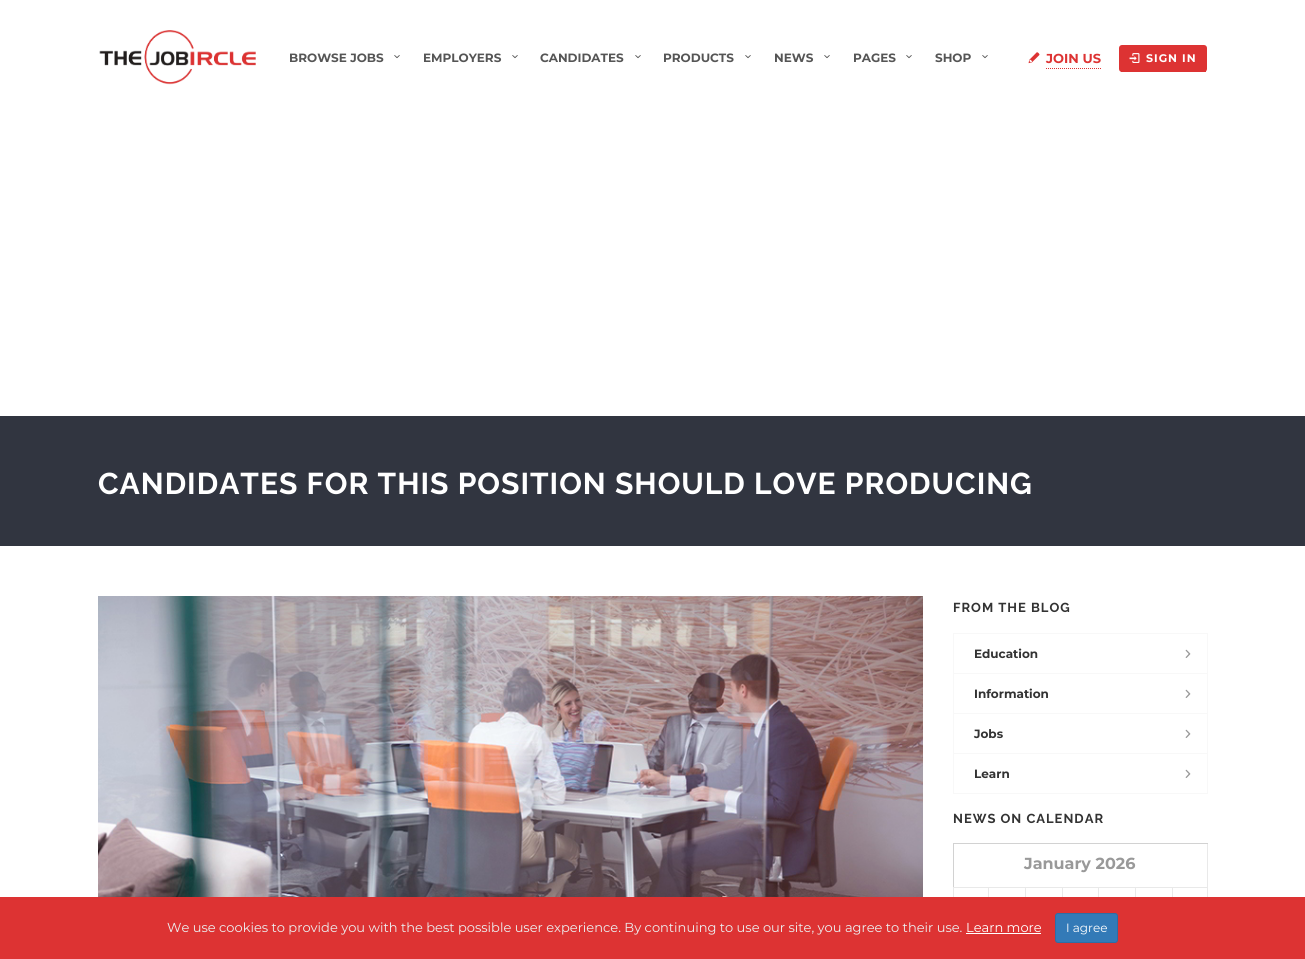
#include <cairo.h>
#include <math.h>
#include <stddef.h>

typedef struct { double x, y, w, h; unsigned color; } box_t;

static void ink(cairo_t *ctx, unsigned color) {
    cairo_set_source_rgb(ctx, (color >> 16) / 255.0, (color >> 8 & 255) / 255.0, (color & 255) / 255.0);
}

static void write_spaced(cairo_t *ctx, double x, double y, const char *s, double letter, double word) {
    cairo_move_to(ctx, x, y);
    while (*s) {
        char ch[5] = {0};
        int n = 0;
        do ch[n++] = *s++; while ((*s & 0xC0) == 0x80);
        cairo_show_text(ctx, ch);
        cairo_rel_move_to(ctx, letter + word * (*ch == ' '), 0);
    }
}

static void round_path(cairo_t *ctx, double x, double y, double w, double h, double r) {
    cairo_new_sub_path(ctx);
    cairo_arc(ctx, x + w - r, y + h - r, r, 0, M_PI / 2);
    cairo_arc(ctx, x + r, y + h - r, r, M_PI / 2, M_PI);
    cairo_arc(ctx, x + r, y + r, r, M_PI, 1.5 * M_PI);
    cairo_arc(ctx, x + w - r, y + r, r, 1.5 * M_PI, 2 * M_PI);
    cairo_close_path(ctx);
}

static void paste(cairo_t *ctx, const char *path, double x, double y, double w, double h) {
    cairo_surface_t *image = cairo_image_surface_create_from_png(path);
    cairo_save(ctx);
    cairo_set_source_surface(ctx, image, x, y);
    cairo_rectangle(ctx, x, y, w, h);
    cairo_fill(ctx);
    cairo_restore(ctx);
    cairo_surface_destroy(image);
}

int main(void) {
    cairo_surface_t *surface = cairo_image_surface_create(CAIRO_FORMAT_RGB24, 1305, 959);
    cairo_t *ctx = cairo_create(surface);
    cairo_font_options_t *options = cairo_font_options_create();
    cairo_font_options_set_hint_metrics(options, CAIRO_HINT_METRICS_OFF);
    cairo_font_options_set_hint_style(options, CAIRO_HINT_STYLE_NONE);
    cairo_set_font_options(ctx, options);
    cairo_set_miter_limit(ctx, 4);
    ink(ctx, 0xFFFFFF);
    cairo_paint(ctx);
    paste(ctx, "media/1.png", 99, 30, 157, 55);
    cairo_select_font_face(ctx, "Montserrat", CAIRO_FONT_SLANT_NORMAL, CAIRO_FONT_WEIGHT_BOLD);
    cairo_set_font_size(ctx, 12);
    ink(ctx, 0x555555);
    cairo_move_to(ctx, 289, 62);
    cairo_show_text(ctx, "BROWSE JOBS");
    paste(ctx, "media/2.png", 394, 55, 6, 4);
    cairo_move_to(ctx, 423, 62);
    cairo_show_text(ctx, "EMPLOYERS");
    paste(ctx, "media/2.png", 512, 55, 6, 4);
    cairo_move_to(ctx, 540, 62);
    cairo_show_text(ctx, "CANDIDATES");
    paste(ctx, "media/2.png", 635, 55, 6, 4);
    cairo_move_to(ctx, 663, 62);
    cairo_show_text(ctx, "PRODUCTS");
    paste(ctx, "media/2.png", 745, 55, 6, 4);
    cairo_move_to(ctx, 774, 62);
    cairo_show_text(ctx, "NEWS");
    paste(ctx, "media/2.png", 824, 55, 6, 4);
    cairo_move_to(ctx, 853, 62);
    cairo_show_text(ctx, "PAGES");
    paste(ctx, "media/2.png", 906, 55, 6, 4);
    cairo_move_to(ctx, 935, 62);
    cairo_show_text(ctx, "SHOP");
    paste(ctx, "media/2.png", 982, 55, 6, 4);
    paste(ctx, "media/3.png", 1028, 52, 12, 12);
    cairo_new_path(ctx);
    cairo_move_to(ctx, 1046, 68.5);
    cairo_line_to(ctx, 1101, 68.5);
    ink(ctx, 0xDD3333);
    cairo_set_line_width(ctx, 1);
    cairo_set_dash(ctx, (double[]){1, 1}, 2, 0);
    cairo_stroke(ctx);
    cairo_set_font_size(ctx, 13);
    cairo_move_to(ctx, 1046, 63);
    cairo_show_text(ctx, "JOIN US");
    round_path(ctx, 1119, 45, 88, 27, 3);
    cairo_fill(ctx);
    cairo_rectangle(ctx, 1121, 71, 85, 1);
    cairo_fill(ctx);
    paste(ctx, "media/4.png", 1129, 53, 11, 10);
    cairo_set_font_size(ctx, 11);
    ink(ctx, 0xFFFFFF);
    write_spaced(ctx, 1146, 62, "SIGN IN", 1, 0);
    ink(ctx, 0x313540);
    cairo_rectangle(ctx, 0, 416, 1305, 130);
    cairo_fill(ctx);
    cairo_select_font_face(ctx, "Raleway", CAIRO_FONT_SLANT_NORMAL, CAIRO_FONT_WEIGHT_BOLD);
    cairo_set_font_size(ctx, 30);
    ink(ctx, 0xFFFFFF);
    write_spaced(ctx, 98, 494, "CANDIDATES FOR THIS POSITION SHOULD LOVE PRODUCING", 1, 0);
    paste(ctx, "media/5.png", 98, 596, 825, 301);
    cairo_set_font_size(ctx, 13);
    ink(ctx, 0x333333);
    write_spaced(ctx, 953, 612, "FROM THE BLOG", 1, 0);
    cairo_rectangle(ctx, 953.5, 633.5, 254, 160);
    ink(ctx, 0xF8F8F8);
    cairo_set_dash(ctx, NULL, 0, 0);
    cairo_stroke(ctx);
    cairo_select_font_face(ctx, "Montserrat", CAIRO_FONT_SLANT_NORMAL, CAIRO_FONT_WEIGHT_BOLD);
    cairo_set_font_size(ctx, 12);
    ink(ctx, 0x333333);
    cairo_move_to(ctx, 974, 658);
    cairo_show_text(ctx, "Education");
    paste(ctx, "media/6.png", 1185, 649, 6, 9);
    ink(ctx, 0xF8F8F8);
    cairo_rectangle(ctx, 954, 673, 253, 1);
    cairo_fill(ctx);
    ink(ctx, 0x333333);
    cairo_move_to(ctx, 974, 698);
    cairo_show_text(ctx, "Information");
    paste(ctx, "media/6.png", 1185, 689, 6, 9);
    ink(ctx, 0xF8F8F8);
    cairo_rectangle(ctx, 954, 713, 253, 1);
    cairo_fill(ctx);
    ink(ctx, 0x333333);
    cairo_move_to(ctx, 974, 738);
    cairo_show_text(ctx, "Jobs");
    paste(ctx, "media/6.png", 1185, 729, 6, 9);
    ink(ctx, 0xF8F8F8);
    cairo_rectangle(ctx, 954, 753, 253, 1);
    cairo_fill(ctx);
    ink(ctx, 0x333333);
    cairo_move_to(ctx, 974, 778);
    cairo_show_text(ctx, "Learn");
    paste(ctx, "media/6.png", 1185, 769, 6, 9);
    cairo_select_font_face(ctx, "Raleway", CAIRO_FONT_SLANT_NORMAL, CAIRO_FONT_WEIGHT_BOLD);
    cairo_set_font_size(ctx, 13);
    write_spaced(ctx, 953, 823, "NEWS ON CALENDAR", 1, 0);
    {
        static const box_t items[] = {
            {1207, 843, 1, 44, 0xE9E9E9},
            {953, 843, 255, 1, 0xD2D2D2},
            {953, 843, 1, 44, 0xD2D2D2},
        };
        for (size_t i = 0; i < sizeof items / sizeof *items; i++) {
            ink(ctx, items[i].color);
            cairo_rectangle(ctx, items[i].x, items[i].y, items[i].w, items[i].h);
            cairo_fill(ctx);
        }
    }
    cairo_select_font_face(ctx, "Montserrat", CAIRO_FONT_SLANT_NORMAL, CAIRO_FONT_WEIGHT_BOLD);
    cairo_set_font_size(ctx, 16);
    ink(ctx, 0x999999);
    cairo_move_to(ctx, 1024, 869);
    cairo_show_text(ctx, "January 2026");
    {
        static const box_t items[] = {
            {1172, 887, 36, 1, 0xE9E9E9},
            {1172, 887, 1, 10, 0xE9E9E9},
            {1135, 887, 38, 1, 0xE9E9E9},
            {1135, 887, 1, 10, 0xE9E9E9},
            {1098, 887, 38, 1, 0xE9E9E9},
            {1098, 887, 1, 10, 0xE9E9E9},
            {1062, 887, 37, 1, 0xE9E9E9},
            {1062, 887, 1, 10, 0xE9E9E9},
            {1025, 887, 38, 1, 0xE9E9E9},
            {1025, 887, 1, 10, 0xE9E9E9},
            {988, 887, 38, 1, 0xE9E9E9},
            {988, 887, 1, 10, 0xE9E9E9},
            {953, 887, 36, 1, 0xE9E9E9},
            {953, 887, 1, 10, 0xE9E9E9},
            {1207, 887, 1, 10, 0xE9E9E9},
            {0, 897, 1305, 62, 0xDD3333},
        };
        for (size_t i = 0; i < sizeof items / sizeof *items; i++) {
            ink(ctx, items[i].color);
            cairo_rectangle(ctx, items[i].x, items[i].y, items[i].w, items[i].h);
            cairo_fill(ctx);
        }
    }
    cairo_select_font_face(ctx, "Montserrat", CAIRO_FONT_SLANT_NORMAL, CAIRO_FONT_WEIGHT_NORMAL);
    cairo_set_font_size(ctx, 13);
    ink(ctx, 0xECF0F1);
    cairo_move_to(ctx, 167, 932);
    cairo_show_text(ctx, "We use cookies to provide you with the best possible user experience. By continuing to use our site, you agree to their use.");
    ink(ctx, 0xFFFFFF);
    cairo_move_to(ctx, 966, 932);
    cairo_show_text(ctx, "Learn more");
    cairo_rectangle(ctx, 966, 933, 75, 1);
    cairo_fill(ctx);
    ink(ctx, 0x337AB7);
    round_path(ctx, 1055.5, 913.5, 62, 29, 2.5);
    cairo_fill_preserve(ctx);
    ink(ctx, 0x2E6DA4);
    cairo_stroke(ctx);
    cairo_set_font_size(ctx, 12);
    ink(ctx, 0xFFFFFF);
    cairo_move_to(ctx, 1066, 932);
    cairo_show_text(ctx, "I agree");
    cairo_surface_write_to_png(surface, "image.png");
    cairo_font_options_destroy(options);
    cairo_destroy(ctx);
    cairo_surface_destroy(surface);
    return 0;
}
